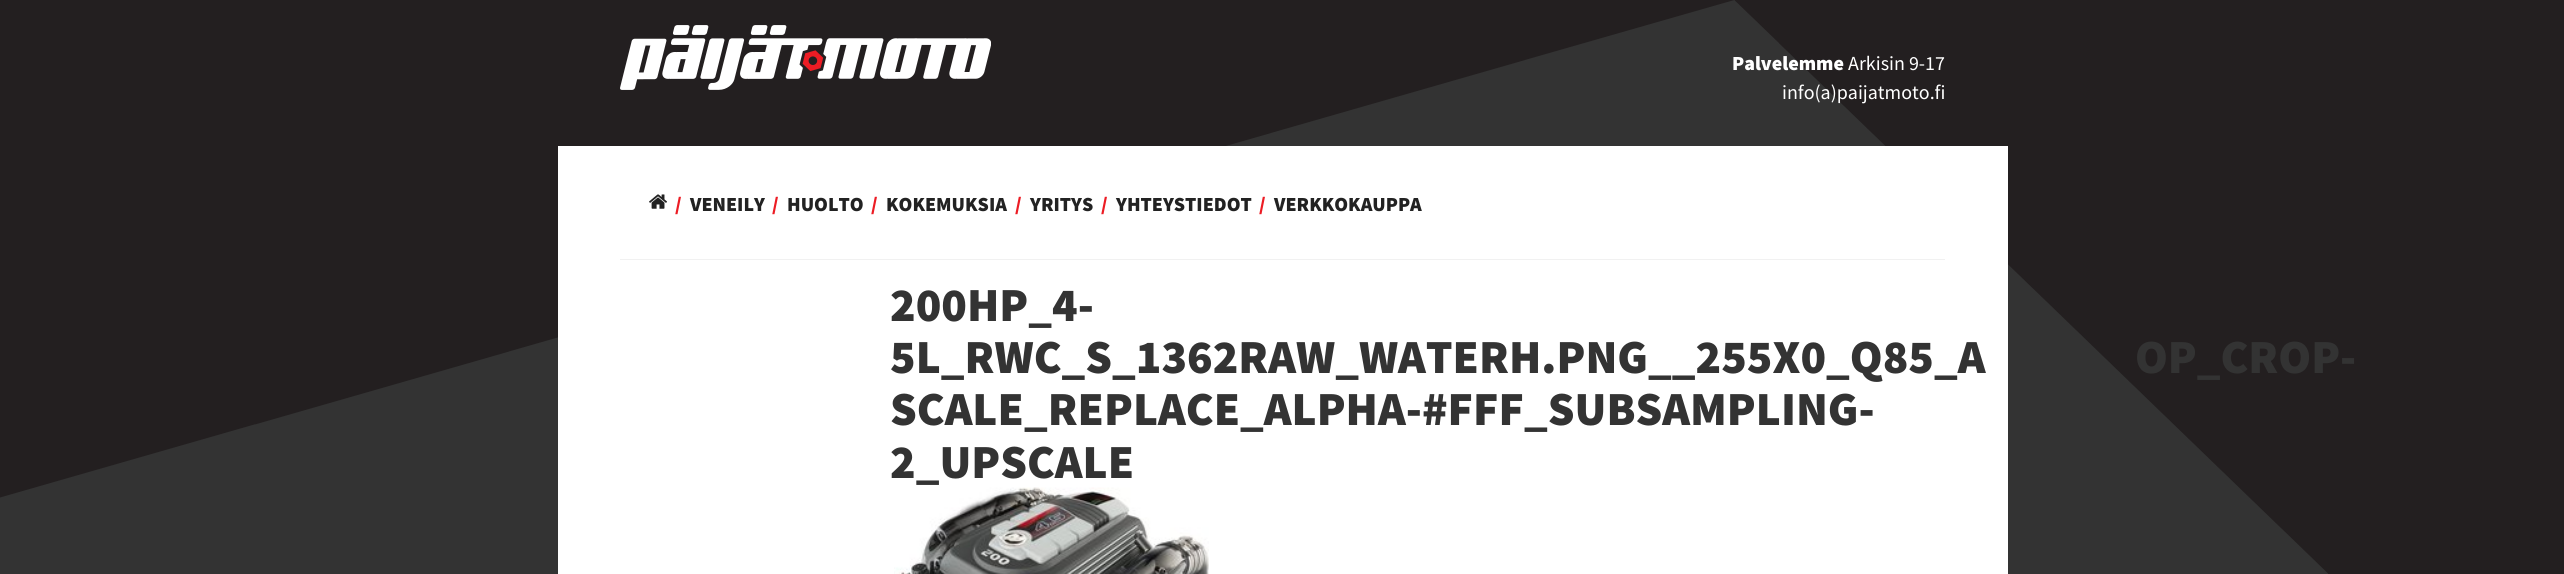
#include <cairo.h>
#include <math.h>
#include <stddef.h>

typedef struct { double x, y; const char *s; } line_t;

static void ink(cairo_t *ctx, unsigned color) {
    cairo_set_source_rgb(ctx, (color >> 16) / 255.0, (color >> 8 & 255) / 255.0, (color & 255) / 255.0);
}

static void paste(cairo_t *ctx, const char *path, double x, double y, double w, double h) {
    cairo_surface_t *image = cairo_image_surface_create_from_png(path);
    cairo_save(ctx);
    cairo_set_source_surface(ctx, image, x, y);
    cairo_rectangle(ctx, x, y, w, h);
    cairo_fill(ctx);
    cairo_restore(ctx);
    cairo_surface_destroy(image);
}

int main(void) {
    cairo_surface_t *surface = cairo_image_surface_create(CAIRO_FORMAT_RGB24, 2564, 574);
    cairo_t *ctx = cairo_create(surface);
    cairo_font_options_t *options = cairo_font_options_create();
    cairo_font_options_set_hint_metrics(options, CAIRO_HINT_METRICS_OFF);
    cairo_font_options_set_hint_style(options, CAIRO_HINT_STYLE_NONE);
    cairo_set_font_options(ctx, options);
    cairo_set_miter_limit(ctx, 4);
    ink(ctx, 0x231F20);
    cairo_paint(ctx);
    paste(ctx, "media/1.png", 0, 0, 2328, 574);
    paste(ctx, "media/2.png", 620, 25, 371, 65);
    cairo_select_font_face(ctx, "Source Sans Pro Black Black", CAIRO_FONT_SLANT_NORMAL, CAIRO_FONT_WEIGHT_NORMAL);
    cairo_set_font_size(ctx, 20);
    ink(ctx, 0xFFFFFF);
    cairo_move_to(ctx, 1732, 70);
    cairo_show_text(ctx, "Palvelemme");
    cairo_select_font_face(ctx, "Source Sans Pro", CAIRO_FONT_SLANT_NORMAL, CAIRO_FONT_WEIGHT_NORMAL);
    cairo_move_to(ctx, 1848, 70);
    cairo_show_text(ctx, "Arkisin 9-17");
    cairo_move_to(ctx, 1782, 99);
    cairo_show_text(ctx, "info(a)paijatmoto.fi");
    cairo_rectangle(ctx, 558, 146, 1450, 428);
    cairo_fill(ctx);
    paste(ctx, "media/3.png", 649, 194, 18, 15);
    cairo_select_font_face(ctx, "Source Sans Pro Black Black", CAIRO_FONT_SLANT_NORMAL, CAIRO_FONT_WEIGHT_NORMAL);
    ink(ctx, 0xEC1C24);
    cairo_move_to(ctx, 675, 211);
    cairo_show_text(ctx, "/");
    ink(ctx, 0x222222);
    cairo_move_to(ctx, 690, 211);
    cairo_show_text(ctx, "VENEILY");
    ink(ctx, 0xEC1C24);
    cairo_move_to(ctx, 772, 211);
    cairo_show_text(ctx, "/");
    ink(ctx, 0x222222);
    cairo_move_to(ctx, 787, 211);
    cairo_show_text(ctx, "HUOLTO");
    ink(ctx, 0xEC1C24);
    cairo_move_to(ctx, 871, 211);
    cairo_show_text(ctx, "/");
    ink(ctx, 0x222222);
    cairo_move_to(ctx, 886, 211);
    cairo_show_text(ctx, "KOKEMUKSIA");
    ink(ctx, 0xEC1C24);
    cairo_move_to(ctx, 1015, 211);
    cairo_show_text(ctx, "/");
    ink(ctx, 0x222222);
    cairo_move_to(ctx, 1030, 211);
    cairo_show_text(ctx, "YRITYS");
    ink(ctx, 0xEC1C24);
    cairo_move_to(ctx, 1101, 211);
    cairo_show_text(ctx, "/");
    ink(ctx, 0x222222);
    cairo_move_to(ctx, 1116, 211);
    cairo_show_text(ctx, "YHTEYSTIEDOT");
    ink(ctx, 0xEC1C24);
    cairo_move_to(ctx, 1259, 211);
    cairo_show_text(ctx, "/");
    ink(ctx, 0x222222);
    cairo_move_to(ctx, 1274, 211);
    cairo_show_text(ctx, "VERKKOKAUPPA");
    ink(ctx, 0xF1F1F1);
    cairo_rectangle(ctx, 620, 259, 1325, 1);
    cairo_fill(ctx);
    cairo_set_font_size(ctx, 47.5);
    ink(ctx, 0x333333);
    {
        static const line_t items[] = {
            {890, 321, "200HP_4-"},
            {890, 373, "5L_RWC_S_1362RAW_WATERH.PNG__255X0_Q85_A"},
            {2135, 373, "OP_CROP-"},
            {890, 425, "SCALE_REPLACE_ALPHA-#FFF_SUBSAMPLING-"},
            {890, 478, "2_UPSCALE"},
        };
        for (size_t i = 0; i < sizeof items / sizeof *items; i++) {
            cairo_move_to(ctx, items[i].x, items[i].y);
            cairo_show_text(ctx, items[i].s);
        }
    }
    paste(ctx, "media/4.png", 894, 487, 315, 87);
    cairo_surface_write_to_png(surface, "image.png");
    cairo_font_options_destroy(options);
    cairo_destroy(ctx);
    cairo_surface_destroy(surface);
    return 0;
}
